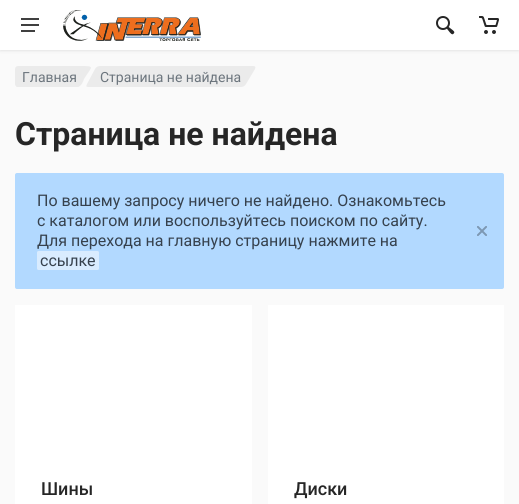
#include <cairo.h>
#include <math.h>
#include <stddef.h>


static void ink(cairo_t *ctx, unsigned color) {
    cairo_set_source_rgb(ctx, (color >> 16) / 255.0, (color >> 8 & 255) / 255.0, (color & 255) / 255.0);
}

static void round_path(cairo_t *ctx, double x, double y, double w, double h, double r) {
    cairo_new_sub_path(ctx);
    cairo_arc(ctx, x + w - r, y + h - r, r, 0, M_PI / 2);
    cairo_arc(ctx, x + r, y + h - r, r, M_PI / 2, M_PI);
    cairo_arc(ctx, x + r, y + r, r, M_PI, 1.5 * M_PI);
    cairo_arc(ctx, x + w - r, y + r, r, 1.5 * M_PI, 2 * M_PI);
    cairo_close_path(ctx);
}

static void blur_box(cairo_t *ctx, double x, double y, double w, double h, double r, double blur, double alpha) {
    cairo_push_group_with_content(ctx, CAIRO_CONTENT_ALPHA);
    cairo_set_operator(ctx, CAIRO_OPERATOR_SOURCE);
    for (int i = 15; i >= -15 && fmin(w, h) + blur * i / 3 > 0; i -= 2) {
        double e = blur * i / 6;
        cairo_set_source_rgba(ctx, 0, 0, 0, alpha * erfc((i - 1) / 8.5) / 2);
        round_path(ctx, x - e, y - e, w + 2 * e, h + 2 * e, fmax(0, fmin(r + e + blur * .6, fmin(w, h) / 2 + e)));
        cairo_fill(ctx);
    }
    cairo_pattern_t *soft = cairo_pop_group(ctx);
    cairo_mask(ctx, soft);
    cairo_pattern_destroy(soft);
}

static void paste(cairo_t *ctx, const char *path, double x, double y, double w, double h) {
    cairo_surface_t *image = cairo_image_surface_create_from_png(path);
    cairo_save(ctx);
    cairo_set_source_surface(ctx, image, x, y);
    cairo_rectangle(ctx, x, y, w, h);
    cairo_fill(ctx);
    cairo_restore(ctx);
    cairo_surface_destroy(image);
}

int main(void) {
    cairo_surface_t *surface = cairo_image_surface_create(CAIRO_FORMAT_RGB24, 519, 504);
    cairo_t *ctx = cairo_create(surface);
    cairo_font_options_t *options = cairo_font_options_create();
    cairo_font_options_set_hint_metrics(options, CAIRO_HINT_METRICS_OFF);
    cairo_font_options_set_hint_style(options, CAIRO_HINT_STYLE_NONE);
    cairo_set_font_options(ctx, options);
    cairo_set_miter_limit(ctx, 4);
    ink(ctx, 0xFAFAFA);
    cairo_paint(ctx);
    ink(ctx, 0x000000);
    blur_box(ctx, 0, 1, 519, 50, 0, 1.5, 0.09);
    ink(ctx, 0xFFFFFF);
    cairo_rectangle(ctx, 0, 0, 519, 50);
    cairo_fill(ctx);
    paste(ctx, "media/1.png", 21, 18, 18, 14);
    paste(ctx, "media/2.png", 63, 10, 138, 31);
    paste(ctx, "media/3.png", 436, 16, 19, 19);
    paste(ctx, "media/4.png", 479, 16, 20, 18);
    ink(ctx, 0xEBEBEB);
    cairo_new_path(ctx);
    cairo_move_to(ctx, 30, 66);
    cairo_line_to(ctx, 79, 66);
    cairo_curve_to(ctx, 96, 66, 92, 66, 84, 79);
    cairo_curve_to(ctx, 83, 82, 81, 87, 77, 87);
    cairo_line_to(ctx, 17, 87);
    cairo_curve_to(ctx, 15, 85, 20, 78, 21, 76);
    cairo_curve_to(ctx, 23, 73, 25, 66, 30, 66);
    cairo_close_path(ctx);
    cairo_fill(ctx);
    round_path(ctx, 15, 66, 65, 21, 3);
    cairo_fill(ctx);
    cairo_select_font_face(ctx, "Roboto", CAIRO_FONT_SLANT_NORMAL, CAIRO_FONT_WEIGHT_NORMAL);
    cairo_set_font_size(ctx, 14);
    ink(ctx, 0x6C757D);
    cairo_move_to(ctx, 22, 82);
    cairo_show_text(ctx, "Главная");
    ink(ctx, 0xEBEBEB);
    cairo_new_path(ctx);
    cairo_move_to(ctx, 100, 66);
    cairo_line_to(ctx, 253, 66);
    cairo_curve_to(ctx, 255, 66, 256, 67, 255, 69);
    cairo_line_to(ctx, 246, 84);
    cairo_curve_to(ctx, 245, 86, 243, 87, 241, 87);
    cairo_line_to(ctx, 88, 87);
    cairo_curve_to(ctx, 86, 87, 86, 86, 87, 84);
    cairo_line_to(ctx, 95, 69);
    cairo_curve_to(ctx, 96, 67, 98, 66, 100, 66);
    cairo_close_path(ctx);
    cairo_fill(ctx);
    ink(ctx, 0x6C757D);
    cairo_move_to(ctx, 100, 82);
    cairo_show_text(ctx, "Страница не найдена");
    cairo_select_font_face(ctx, "Roboto", CAIRO_FONT_SLANT_NORMAL, CAIRO_FONT_WEIGHT_BOLD);
    cairo_set_font_size(ctx, 32);
    ink(ctx, 0x262626);
    cairo_move_to(ctx, 15, 145);
    cairo_show_text(ctx, "Страница не найдена");
    ink(ctx, 0xB2D9FF);
    round_path(ctx, 15, 173, 489, 116, 2);
    cairo_fill(ctx);
    cairo_select_font_face(ctx, "Roboto", CAIRO_FONT_SLANT_NORMAL, CAIRO_FONT_WEIGHT_NORMAL);
    cairo_set_font_size(ctx, 16);
    ink(ctx, 0x36414D);
    cairo_move_to(ctx, 37, 206);
    cairo_show_text(ctx, "По вашему запросу ничего не найдено. Ознакомьтесь");
    cairo_move_to(ctx, 37, 226);
    cairo_show_text(ctx, "с каталогом или воспользуйтесь поиском по сайту.");
    paste(ctx, "media/5.png", 477, 226, 10, 10);
    cairo_move_to(ctx, 37, 246);
    cairo_show_text(ctx, "Для перехода на главную страницу нажмите на");
    ink(ctx, 0xD9ECFF);
    round_path(ctx, 37, 251, 62, 19, 1.5);
    cairo_fill(ctx);
    ink(ctx, 0x36414D);
    cairo_move_to(ctx, 40, 266);
    cairo_show_text(ctx, "ссылке");
    ink(ctx, 0xFFFFFF);
    cairo_rectangle(ctx, 15, 305, 237, 199);
    cairo_fill(ctx);
    cairo_select_font_face(ctx, "Roboto Medium", CAIRO_FONT_SLANT_NORMAL, CAIRO_FONT_WEIGHT_NORMAL);
    cairo_set_font_size(ctx, 18);
    ink(ctx, 0x262626);
    cairo_move_to(ctx, 41, 495);
    cairo_show_text(ctx, "Шины");
    ink(ctx, 0xFFFFFF);
    cairo_rectangle(ctx, 268, 305, 236, 199);
    cairo_fill(ctx);
    ink(ctx, 0x262626);
    cairo_move_to(ctx, 294, 495);
    cairo_show_text(ctx, "Диски");
    cairo_surface_write_to_png(surface, "image.png");
    cairo_font_options_destroy(options);
    cairo_destroy(ctx);
    cairo_surface_destroy(surface);
    return 0;
}
